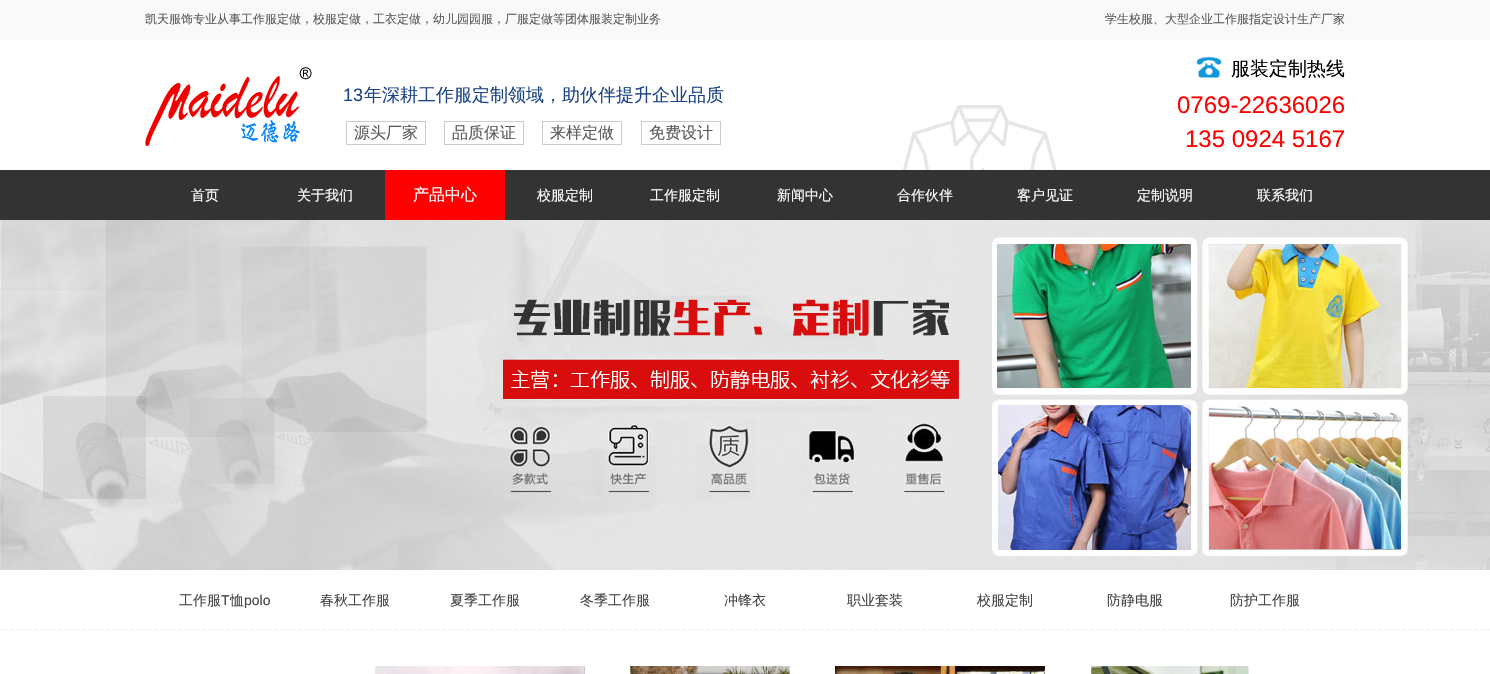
#include "include/core/SkBlurTypes.h"
#include "include/core/SkCanvas.h"
#include "include/core/SkData.h"
#include "include/core/SkFont.h"
#include "include/core/SkFontMgr.h"
#include "include/core/SkImage.h"
#include "include/core/SkMaskFilter.h"
#include "include/core/SkPaint.h"
#include "include/core/SkPathBuilder.h"
#include "include/core/SkTextBlob.h"
#include "include/effects/SkDashPathEffect.h"
#include "include/effects/SkGradientShader.h"
#include "include/utils/SkParsePath.h"

extern sk_sp<SkFontMgr> fontMgr;

void draw(SkCanvas* canvas) {
  SkPaint p;
  p.setAntiAlias(true);
  canvas->clear(SK_ColorWHITE);
  p.setColor(SkColorSetRGB(249, 249, 249));
  canvas->drawRect(SkRect::MakeLTRB(0, 0, 1490, 40), p);
  canvas->drawImageRect(SkImages::DeferredFromEncodedData(SkData::MakeFromFileName("images/1.png")), SkRect::MakeLTRB(145, 67, 312, 146), SkSamplingOptions());
  canvas->drawImageRect(SkImages::DeferredFromEncodedData(SkData::MakeFromFileName("images/2.png")), SkRect::MakeLTRB(1196, 56, 1222, 78), SkSamplingOptions());
  p.setStyle(SkPaint::kStroke_Style);
  p.setStrokeWidth(1);
  p.setColor(SkColorSetRGB(204, 204, 204));
  canvas->drawRect(SkRect::MakeLTRB(346.5f, 121.5f, 425.5f, 144.5f), p);
  canvas->drawRect(SkRect::MakeLTRB(444.5f, 121.5f, 523.5f, 144.5f), p);
  canvas->drawRect(SkRect::MakeLTRB(542.5f, 121.5f, 621.5f, 144.5f), p);
  canvas->drawRect(SkRect::MakeLTRB(641.5f, 121.5f, 720.5f, 144.5f), p);
  canvas->drawImageRect(SkImages::DeferredFromEncodedData(SkData::MakeFromFileName("images/3.png")), SkRect::MakeLTRB(902, 105, 1057, 170), SkSamplingOptions());
  p.setStyle(SkPaint::kFill_Style);
  p.setColor(SkColorSetRGB(51, 51, 51));
  canvas->drawRect(SkRect::MakeLTRB(0, 170, 1490, 220), p);
  p.setColor(SkColorSetRGB(255, 0, 0));
  canvas->drawRect(SkRect::MakeLTRB(385, 170, 505, 220), p);
  canvas->drawImageRect(SkImages::DeferredFromEncodedData(SkData::MakeFromFileName("images/4.png")), SkRect::MakeLTRB(0, 220, 1490, 570), SkSamplingOptions());
  canvas->drawImageRect(SkImages::DeferredFromEncodedData(SkData::MakeFromFileName("images/5.png")), SkRect::MakeLTRB(0, 629, 1490, 630), SkSamplingOptions());
  canvas->drawImageRect(SkImages::DeferredFromEncodedData(SkData::MakeFromFileName("images/6.png")), SkRect::MakeLTRB(375, 666, 585, 674), SkSamplingOptions());
  canvas->drawImageRect(SkImages::DeferredFromEncodedData(SkData::MakeFromFileName("images/7.png")), SkRect::MakeLTRB(630, 666, 790, 674), SkSamplingOptions());
  canvas->drawImageRect(SkImages::DeferredFromEncodedData(SkData::MakeFromFileName("images/8.png")), SkRect::MakeLTRB(835, 666, 1045, 674), SkSamplingOptions());
  canvas->drawImageRect(SkImages::DeferredFromEncodedData(SkData::MakeFromFileName("images/9.png")), SkRect::MakeLTRB(1091, 666, 1249, 674), SkSamplingOptions());
  SkFont font1(fontMgr->matchFamilyStyle("WenQuanYi Zen Hei", SkFontStyle(500, SkFontStyle::kNormal_Width, SkFontStyle::kUpright_Slant)), 12);
  font1.setSubpixel(true);
  p.setColor(SkColorSetRGB(90, 90, 90));
  canvas->drawString("凯天服饰专业从事工作服定做，校服定做，工衣定做，幼儿园园服，厂服定做等团体服装定制业务", 145, 23, font1, p);
  canvas->drawString("学生校服、大型企业工作服指定设计生产厂家", 1105, 23, font1, p);
  SkFont font2(fontMgr->matchFamilyStyle("Liberation Sans", SkFontStyle::Normal()), 18);
  font2.setSubpixel(true);
  p.setColor(SkColorSetRGB(28, 69, 135));
  canvas->drawString("13", 343, 101, font2, p);
  SkFont font3(fontMgr->matchFamilyStyle("WenQuanYi Zen Hei", SkFontStyle(500, SkFontStyle::kNormal_Width, SkFontStyle::kUpright_Slant)), 18);
  font3.setSubpixel(true);
  canvas->drawString("年深耕工作服定制领域，助伙伴提升企业品质", 364, 101, font3, p);
  SkFont font4(fontMgr->matchFamilyStyle("WenQuanYi Zen Hei", SkFontStyle(500, SkFontStyle::kNormal_Width, SkFontStyle::kUpright_Slant)), 19);
  font4.setSubpixel(true);
  p.setColor(SK_ColorBLACK);
  canvas->drawString("服装定制热线", 1231, 75, font4, p);
  SkFont font5(fontMgr->matchFamilyStyle("WenQuanYi Zen Hei", SkFontStyle(500, SkFontStyle::kNormal_Width, SkFontStyle::kUpright_Slant)), 16);
  font5.setSubpixel(true);
  p.setColor(SkColorSetRGB(90, 90, 90));
  canvas->drawString("源头厂家", 354, 138, font5, p);
  canvas->drawString("品质保证", 452, 138, font5, p);
  canvas->drawString("来样定做", 550, 138, font5, p);
  canvas->drawString("免费设计", 649, 138, font5, p);
  SkFont font6(fontMgr->matchFamilyStyle("Liberation Sans", SkFontStyle::Normal()), 24);
  font6.setSubpixel(true);
  p.setColor(SkColorSetRGB(255, 0, 0));
  canvas->drawString("0769-22636026", 1177, 113, font6, p);
  canvas->drawString("135 0924 5167", 1185, 147, font6, p);
  SkFont font7(fontMgr->matchFamilyStyle("WenQuanYi Zen Hei", SkFontStyle(500, SkFontStyle::kNormal_Width, SkFontStyle::kUpright_Slant)), 14);
  font7.setSubpixel(true);
  p.setColor(SK_ColorWHITE);
  canvas->drawString("首页", 191, 200, font7, p);
  canvas->drawString("关于我们", 297, 200, font7, p);
  canvas->drawString("产品中心", 413, 200, font5, p);
  canvas->drawString("校服定制", 537, 200, font7, p);
  canvas->drawString("工作服定制", 650, 200, font7, p);
  canvas->drawString("新闻中心", 777, 200, font7, p);
  canvas->drawString("合作伙伴", 897, 200, font7, p);
  canvas->drawString("客户见证", 1017, 200, font7, p);
  canvas->drawString("定制说明", 1137, 200, font7, p);
  canvas->drawString("联系我们", 1257, 200, font7, p);
  p.setColor(SkColorSetRGB(67, 67, 67));
  canvas->drawString("工作服", 179, 605, font7, p);
  SkFont font8(fontMgr->matchFamilyStyle("Liberation Sans", SkFontStyle::Normal()), 14);
  font8.setSubpixel(true);
  canvas->drawString("T", 221, 605, font8, p);
  canvas->drawString("恤", 230, 605, font7, p);
  canvas->drawString("polo", 244, 605, font8, p);
  canvas->drawString("春秋工作服", 320, 605, font7, p);
  canvas->drawString("夏季工作服", 450, 605, font7, p);
  canvas->drawString("冬季工作服", 580, 605, font7, p);
  canvas->drawString("冲锋衣", 724, 605, font7, p);
  canvas->drawString("职业套装", 847, 605, font7, p);
  canvas->drawString("校服定制", 977, 605, font7, p);
  canvas->drawString("防静电服", 1107, 605, font7, p);
  canvas->drawString("防护工作服", 1230, 605, font7, p);
}
